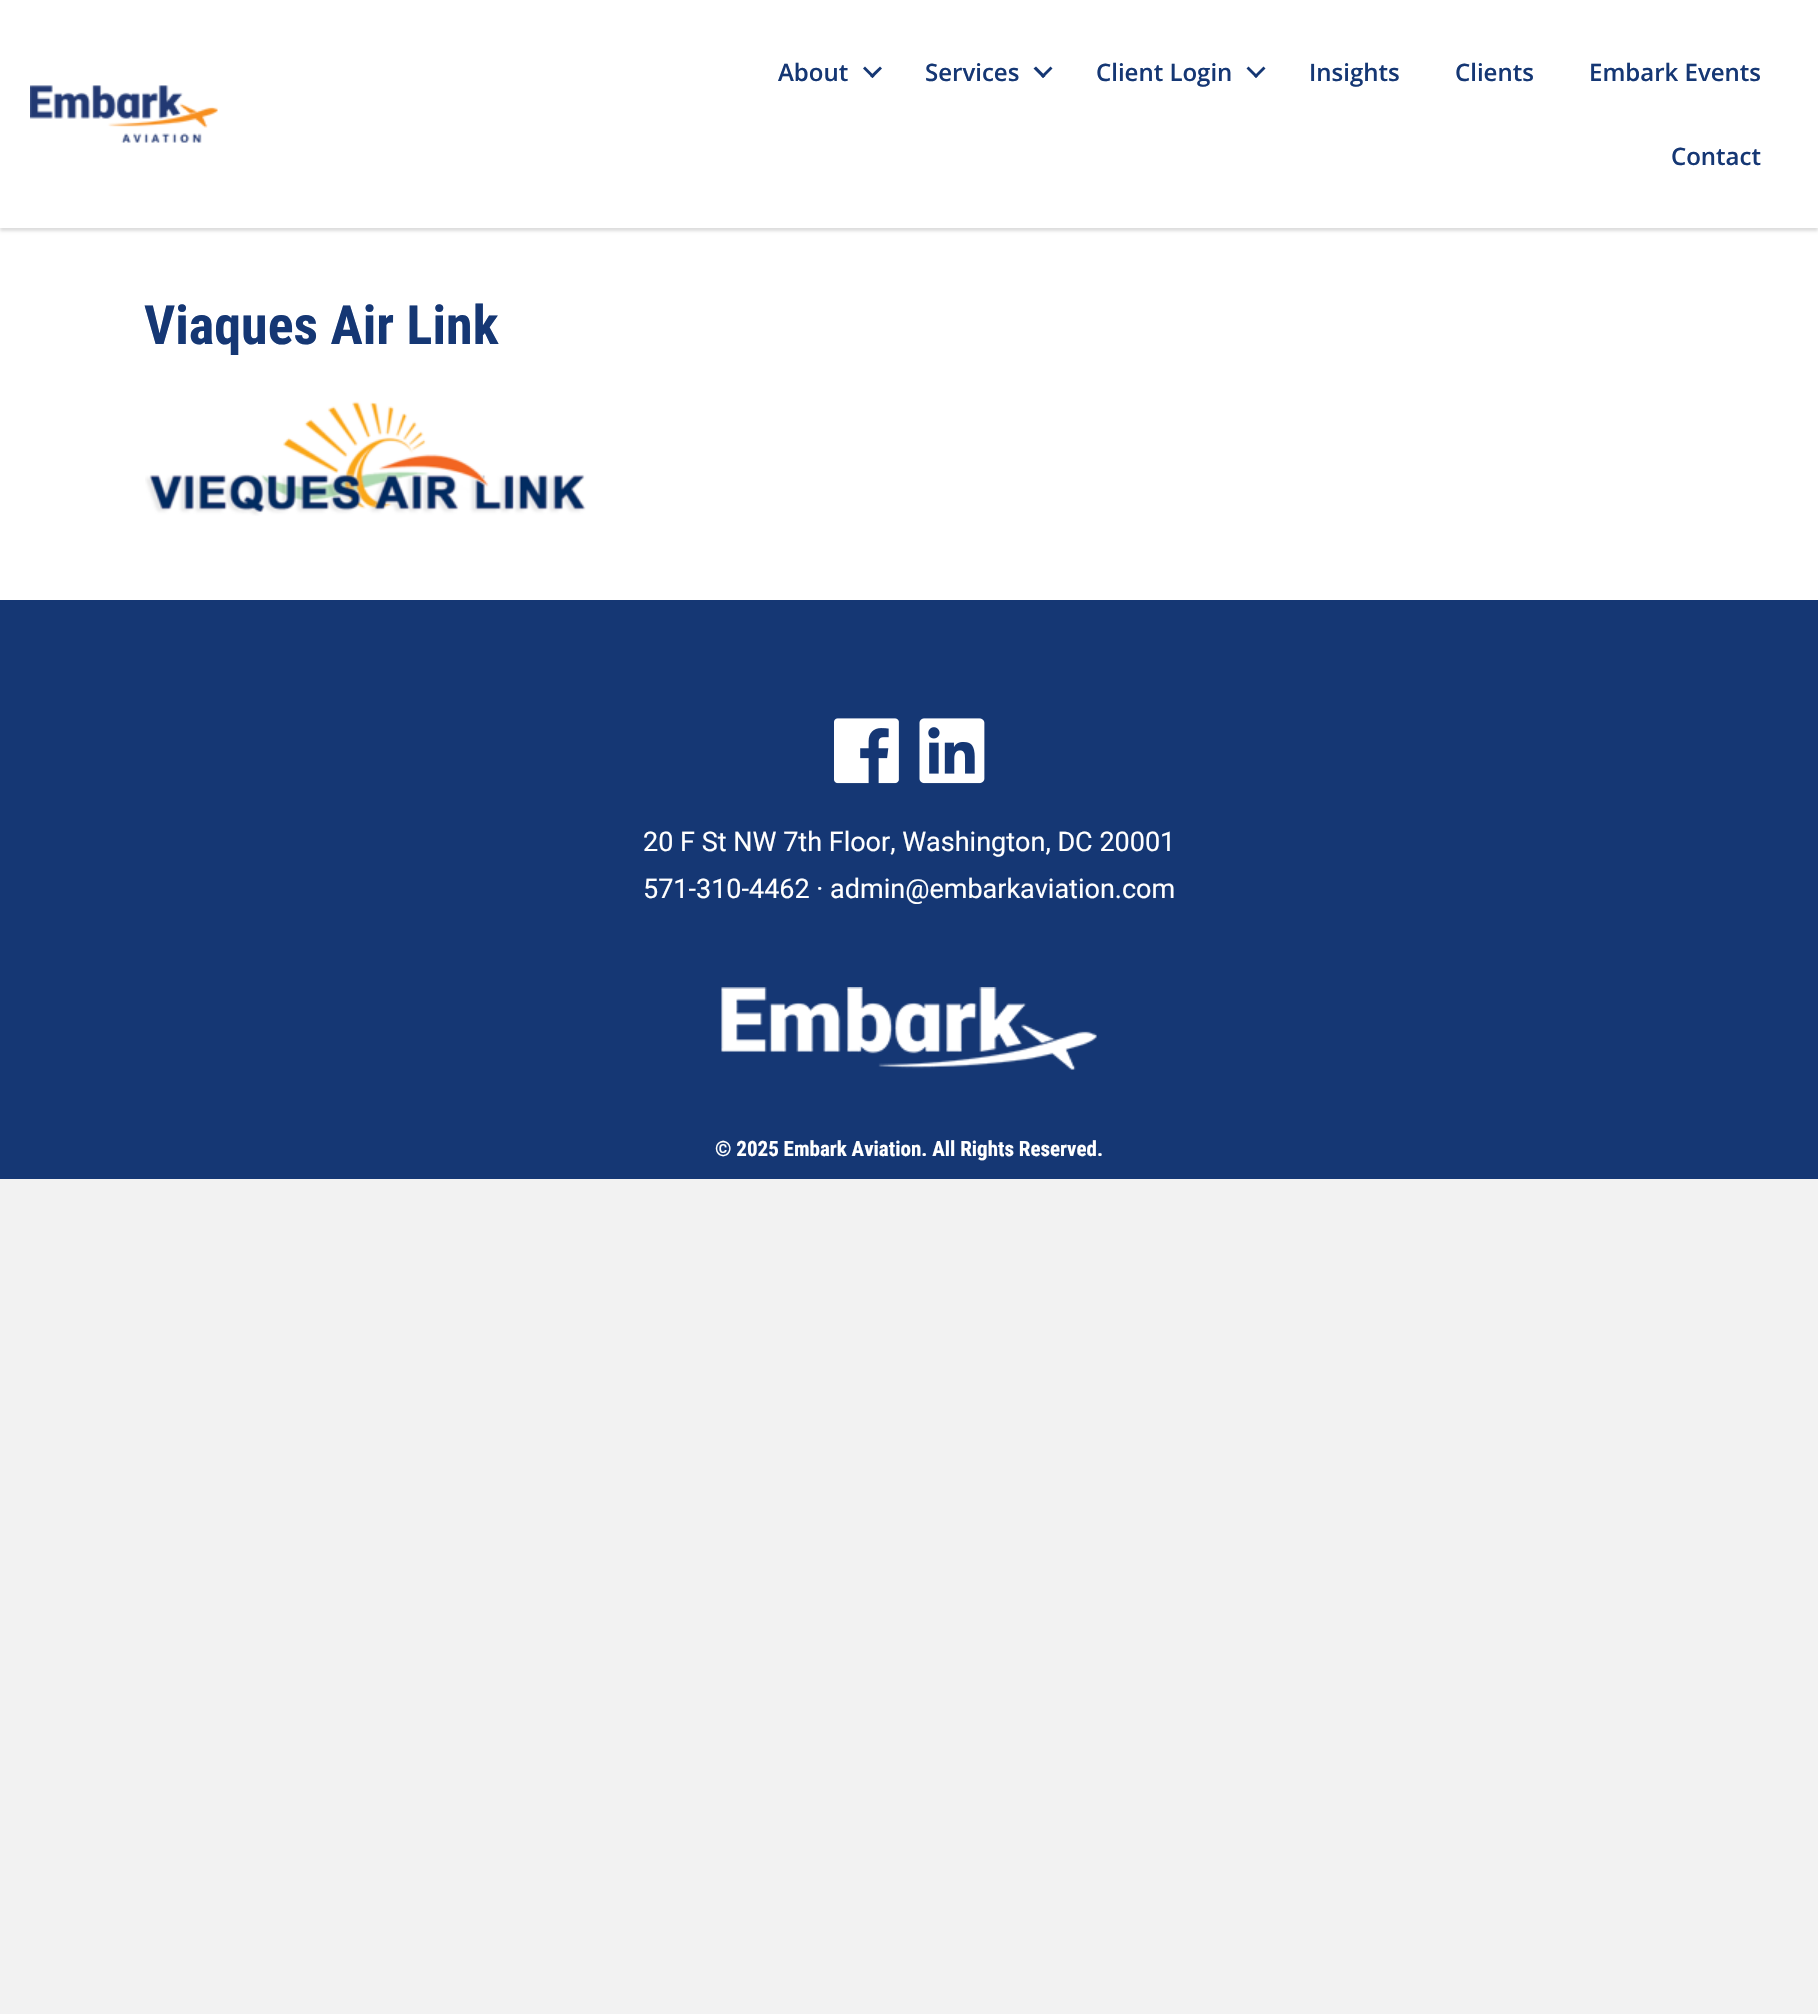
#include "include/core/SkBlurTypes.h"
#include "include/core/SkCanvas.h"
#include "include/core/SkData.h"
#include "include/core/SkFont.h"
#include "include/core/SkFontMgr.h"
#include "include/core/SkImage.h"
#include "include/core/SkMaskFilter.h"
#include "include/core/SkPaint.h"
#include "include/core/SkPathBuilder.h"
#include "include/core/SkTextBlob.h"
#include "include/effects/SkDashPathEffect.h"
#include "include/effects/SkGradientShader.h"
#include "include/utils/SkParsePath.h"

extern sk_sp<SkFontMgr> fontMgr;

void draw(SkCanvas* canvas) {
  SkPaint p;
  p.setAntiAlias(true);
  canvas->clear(SkColorSetRGB(242, 242, 242));
  p.setColor(SK_ColorWHITE);
  canvas->drawRect(SkRect::MakeLTRB(0, 228, 1818, 600), p);
  p.setColor(SkColorSetRGB(221, 221, 221));
  p.setMaskFilter(SkMaskFilter::MakeBlur(kNormal_SkBlurStyle, 1.5f));
  canvas->drawRect(SkRect::MakeLTRB(0, 3, 1818, 231), p);
  p.setMaskFilter(nullptr);
  p.setColor(SK_ColorWHITE);
  canvas->drawRect(SkRect::MakeLTRB(0, 0, 1818, 228), p);
  canvas->drawImageRect(SkImages::DeferredFromEncodedData(SkData::MakeFromFileName("images/1.png")), SkRect::MakeLTRB(30, 85, 218, 143), SkSamplingOptions());
  p.setColor(SkColorSetRGB(21, 55, 116));
  canvas->drawPath(SkPathBuilder().moveTo(880, 66.5f).lineTo(882, 68.5f).lineTo(872.5f, 78).lineTo(870, 76).close().detach(), p);
  canvas->drawPath(SkPathBuilder().moveTo(865, 66.5f).lineTo(874.5f, 76).lineTo(872.5f, 78).lineTo(863, 68.5f).close().detach(), p);
  canvas->drawPath(SkPathBuilder().moveTo(1050.5f, 66.5f).lineTo(1052.5f, 68.5f).lineTo(1043, 78).lineTo(1041, 76).close().detach(), p);
  canvas->drawPath(SkPathBuilder().moveTo(1036, 66.5f).lineTo(1045.5f, 76).lineTo(1043, 78).lineTo(1033.5f, 68.5f).close().detach(), p);
  canvas->drawPath(SkPathBuilder().moveTo(1263.5f, 66.5f).lineTo(1265.5f, 68.5f).lineTo(1256, 78).lineTo(1254, 76).close().detach(), p);
  canvas->drawPath(SkPathBuilder().moveTo(1248.5f, 66.5f).lineTo(1258, 76).lineTo(1256, 78).lineTo(1246.5f, 68.5f).close().detach(), p);
  canvas->drawImageRect(SkImages::DeferredFromEncodedData(SkData::MakeFromFileName("images/2.png")), SkRect::MakeLTRB(145, 401, 586, 516), SkSamplingOptions());
  canvas->drawRect(SkRect::MakeLTRB(0, 600, 1818, 1179), p);
  canvas->drawImageRect(SkImages::DeferredFromEncodedData(SkData::MakeFromFileName("images/3.png")), SkRect::MakeLTRB(834, 718, 899, 784), SkSamplingOptions());
  canvas->drawImageRect(SkImages::DeferredFromEncodedData(SkData::MakeFromFileName("images/4.png")), SkRect::MakeLTRB(919, 718, 985, 784), SkSamplingOptions());
  canvas->drawImageRect(SkImages::DeferredFromEncodedData(SkData::MakeFromFileName("images/5.png")), SkRect::MakeLTRB(721, 987, 1097, 1070), SkSamplingOptions());
  SkFont font1(fontMgr->matchFamilyStyle("Open Sans", SkFontStyle(600, SkFontStyle::kNormal_Width, SkFontStyle::kUpright_Slant)), 24);
  font1.setSubpixel(true);
  canvas->drawString("About", 778, 81, font1, p);
  canvas->drawString("Services", 925, 81, font1, p);
  canvas->drawString("Client Login", 1096, 81, font1, p);
  canvas->drawString("Insights", 1309, 81, font1, p);
  canvas->drawString("Clients", 1455, 81, font1, p);
  canvas->drawString("Embark Events", 1589, 81, font1, p);
  canvas->drawString("Contact", 1671, 165, font1, p);
  SkFont font2(fontMgr->matchFamilyStyle("Roboto Condensed", SkFontStyle::Bold()), 54);
  font2.setSubpixel(true);
  canvas->drawString("Viaques Air Link", 144, 344, font2, p);
  SkFont font3(fontMgr->matchFamilyStyle("Roboto", SkFontStyle::Normal()), 27);
  font3.setSubpixel(true);
  p.setColor(SK_ColorWHITE);
  canvas->drawString("20 F St NW 7th Floor, Washington, DC 20001", 643, 851, font3, p);
  canvas->drawString("571-310-4462 · admin@embarkaviation.com", 643, 898, font3, p);
  SkFont font4(fontMgr->matchFamilyStyle("Roboto Condensed", SkFontStyle::Bold()), 21);
  font4.setSubpixel(true);
  canvas->drawString("© 2025 Embark Aviation. All Rights Reserved.", 715, 1156, font4, p);
}
